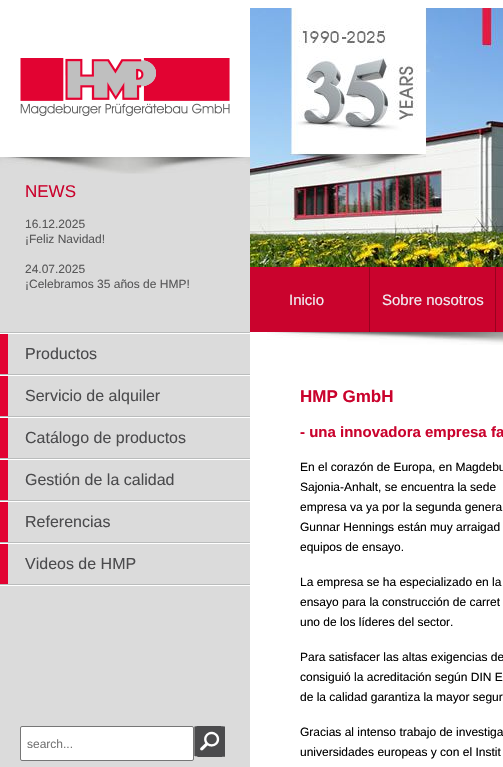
#include "include/core/SkBlurTypes.h"
#include "include/core/SkCanvas.h"
#include "include/core/SkData.h"
#include "include/core/SkFont.h"
#include "include/core/SkFontMgr.h"
#include "include/core/SkImage.h"
#include "include/core/SkMaskFilter.h"
#include "include/core/SkPaint.h"
#include "include/core/SkPathBuilder.h"
#include "include/core/SkTextBlob.h"
#include "include/effects/SkDashPathEffect.h"
#include "include/effects/SkGradientShader.h"
#include "include/utils/SkParsePath.h"

extern sk_sp<SkFontMgr> fontMgr;

void draw(SkCanvas* canvas) {
  SkPaint p;
  p.setAntiAlias(true);
  canvas->clear(SK_ColorWHITE);
  p.setColor(SkColorSetRGB(202, 3, 45));
  canvas->drawRect(SkRect::MakeLTRB(250, 267, 503, 332), p);
  canvas->drawImageRect(SkImages::DeferredFromEncodedData(SkData::MakeFromFileName("images/1.png")), SkRect::MakeLTRB(20, 58, 230, 116), SkSamplingOptions());
  canvas->drawImageRect(SkImages::DeferredFromEncodedData(SkData::MakeFromFileName("images/2.png")), SkRect::MakeLTRB(250, 8, 503, 267), SkSamplingOptions());
  p.setColor(SkColorSetRGB(219, 219, 219));
  canvas->drawRect(SkRect::MakeLTRB(0, 174, 250, 332), p);
  canvas->drawImageRect(SkImages::DeferredFromEncodedData(SkData::MakeFromFileName("images/3.png")), SkRect::MakeLTRB(0, 157, 250, 174), SkSamplingOptions());
  p.setColor(SkColorSetRGB(152, 2, 31));
  canvas->drawRect(SkRect::MakeLTRB(369, 267, 370, 332), p);
  canvas->drawRect(SkRect::MakeLTRB(495, 267, 496, 332), p);
  p.setColor(SkColorSetRGB(219, 219, 219));
  canvas->drawRect(SkRect::MakeLTRB(0, 334, 250, 767), p);
  p.setColor(SkColorSetRGB(186, 188, 188));
  canvas->drawRect(SkRect::MakeLTRB(0, 332, 250, 333), p);
  p.setColor(SkColorSetRGB(226, 3, 50));
  canvas->drawRect(SkRect::MakeLTRB(0, 334, 8, 374), p);
  p.setColor(SkColorSetRGB(186, 188, 188));
  canvas->drawRect(SkRect::MakeLTRB(0, 374, 250, 375), p);
  p.setColor(SkColorSetRGB(226, 3, 50));
  canvas->drawRect(SkRect::MakeLTRB(0, 376, 8, 416), p);
  p.setColor(SK_ColorWHITE);
  canvas->drawRect(SkRect::MakeLTRB(0, 375, 250, 376), p);
  p.setColor(SkColorSetRGB(186, 188, 188));
  canvas->drawRect(SkRect::MakeLTRB(0, 416, 250, 417), p);
  p.setColor(SkColorSetRGB(226, 3, 50));
  canvas->drawRect(SkRect::MakeLTRB(0, 418, 8, 458), p);
  p.setColor(SK_ColorWHITE);
  canvas->drawRect(SkRect::MakeLTRB(0, 417, 250, 418), p);
  p.setColor(SkColorSetRGB(186, 188, 188));
  canvas->drawRect(SkRect::MakeLTRB(0, 458, 250, 459), p);
  p.setColor(SkColorSetRGB(226, 3, 50));
  canvas->drawRect(SkRect::MakeLTRB(0, 460, 8, 500), p);
  p.setColor(SK_ColorWHITE);
  canvas->drawRect(SkRect::MakeLTRB(0, 459, 250, 460), p);
  p.setColor(SkColorSetRGB(186, 188, 188));
  canvas->drawRect(SkRect::MakeLTRB(0, 500, 250, 501), p);
  p.setColor(SkColorSetRGB(226, 3, 50));
  canvas->drawRect(SkRect::MakeLTRB(0, 502, 8, 542), p);
  p.setColor(SK_ColorWHITE);
  canvas->drawRect(SkRect::MakeLTRB(0, 501, 250, 502), p);
  p.setColor(SkColorSetRGB(186, 188, 188));
  canvas->drawRect(SkRect::MakeLTRB(0, 542, 250, 543), p);
  p.setColor(SkColorSetRGB(226, 3, 50));
  canvas->drawRect(SkRect::MakeLTRB(0, 544, 8, 584), p);
  p.setColor(SK_ColorWHITE);
  canvas->drawRect(SkRect::MakeLTRB(0, 543, 250, 544), p);
  p.setColor(SkColorSetRGB(186, 188, 188));
  canvas->drawRect(SkRect::MakeLTRB(0, 584, 250, 585), p);
  p.setColor(SK_ColorWHITE);
  canvas->drawRect(SkRect::MakeLTRB(0, 585, 250, 586), p);
  canvas->drawRoundRect(SkRect::MakeLTRB(20.5f, 726.5f, 193.5f, 760.5f), 1.5f, 1.5f, p);
  p.setStyle(SkPaint::kStroke_Style);
  p.setStrokeWidth(1);
  p.setColor(SkColorSetRGB(118, 118, 118));
  canvas->drawRoundRect(SkRect::MakeLTRB(20.5f, 726.5f, 193.5f, 760.5f), 1.5f, 1.5f, p);
  canvas->drawImageRect(SkImages::DeferredFromEncodedData(SkData::MakeFromFileName("images/4.png")), SkRect::MakeLTRB(194, 726, 225, 757), SkSamplingOptions());
  canvas->drawImageRect(SkImages::DeferredFromEncodedData(SkData::MakeFromFileName("images/5.png")), SkRect::MakeLTRB(267, 332, 503, 345), SkSamplingOptions());
  SkFont font1(fontMgr->matchFamilyStyle("Liberation Sans", SkFontStyle::Normal()), 17);
  font1.setSubpixel(true);
  p.setStyle(SkPaint::kFill_Style);
  p.setColor(SkColorSetRGB(202, 3, 45));
  canvas->drawString("NEWS", 25, 197, font1, p);
  SkFont font2(fontMgr->matchFamilyStyle("Liberation Sans", SkFontStyle::Normal()), 12);
  font2.setSubpixel(true);
  p.setColor(SkColorSetRGB(88, 88, 89));
  canvas->drawString("16.12.2025", 25, 228, font2, p);
  canvas->drawString("¡Feliz Navidad!", 25, 243, font2, p);
  canvas->drawString("24.07.2025", 25, 273, font2, p);
  canvas->drawString("¡Celebramos 35 años de HMP!", 25, 288, font2, p);
  SkFont font3(fontMgr->matchFamilyStyle("Liberation Sans", SkFontStyle::Normal()), 15);
  font3.setSubpixel(true);
  p.setColor(SkColorSetRGB(240, 237, 241));
  canvas->drawString("Inicio", 289, 305, font3, p);
  canvas->drawString("Sobre nosotros", 382, 305, font3, p);
  SkFont font4(fontMgr->matchFamilyStyle("Liberation Sans", SkFontStyle::Normal()), 16);
  font4.setSubpixel(true);
  p.setColor(SkColorSetRGB(75, 75, 77));
  canvas->drawString("Productos", 25, 359, font4, p);
  canvas->drawString("Servicio de alquiler", 25, 401, font4, p);
  canvas->drawString("Catálogo de productos", 25, 443, font4, p);
  canvas->drawString("Gestión de la calidad", 25, 485, font4, p);
  canvas->drawString("Referencias", 25, 527, font4, p);
  canvas->drawString("Videos de HMP", 25, 569, font4, p);
  p.setColor(SkColorSetRGB(117, 117, 117));
  canvas->drawString("search...", 27, 748, font2, p);
  SkFont font5(fontMgr->matchFamilyStyle("Liberation Sans", SkFontStyle::Bold()), 17);
  font5.setSubpixel(true);
  p.setColor(SkColorSetRGB(202, 3, 45));
  canvas->drawString("HMP GmbH", 300, 402, font5, p);
  SkFont font6(fontMgr->matchFamilyStyle("Liberation Sans", SkFontStyle::Bold()), 15);
  font6.setSubpixel(true);
  canvas->drawString("- una innovadora empresa fa", 300, 437, font6, p);
  p.setColor(SK_ColorBLACK);
  canvas->drawString("En el corazón de Europa, en Magdebu", 300, 471, font2, p);
  canvas->drawString("Sajonia-Anhalt, se encuentra la sede", 300, 491, font2, p);
  canvas->drawString("empresa va ya por la segunda genera", 300, 511, font2, p);
  canvas->drawString("Gunnar Hennings están muy arraigad", 300, 531, font2, p);
  canvas->drawString("equipos de ensayo.", 300, 551, font2, p);
  canvas->drawString("La empresa se ha especializado en la", 300, 586, font2, p);
  canvas->drawString("ensayo para la construcción de carret", 300, 606, font2, p);
  canvas->drawString("uno de los líderes del sector.", 300, 626, font2, p);
  canvas->drawString("Para satisfacer las altas exigencias de", 300, 661, font2, p);
  canvas->drawString("consiguió la acreditación según DIN E", 300, 681, font2, p);
  canvas->drawString("de la calidad garantiza la mayor segur", 300, 701, font2, p);
  canvas->drawString("Gracias al intenso trabajo de investiga", 300, 736, font2, p);
  canvas->drawString("universidades europeas y con el Instit", 300, 756, font2, p);
}
